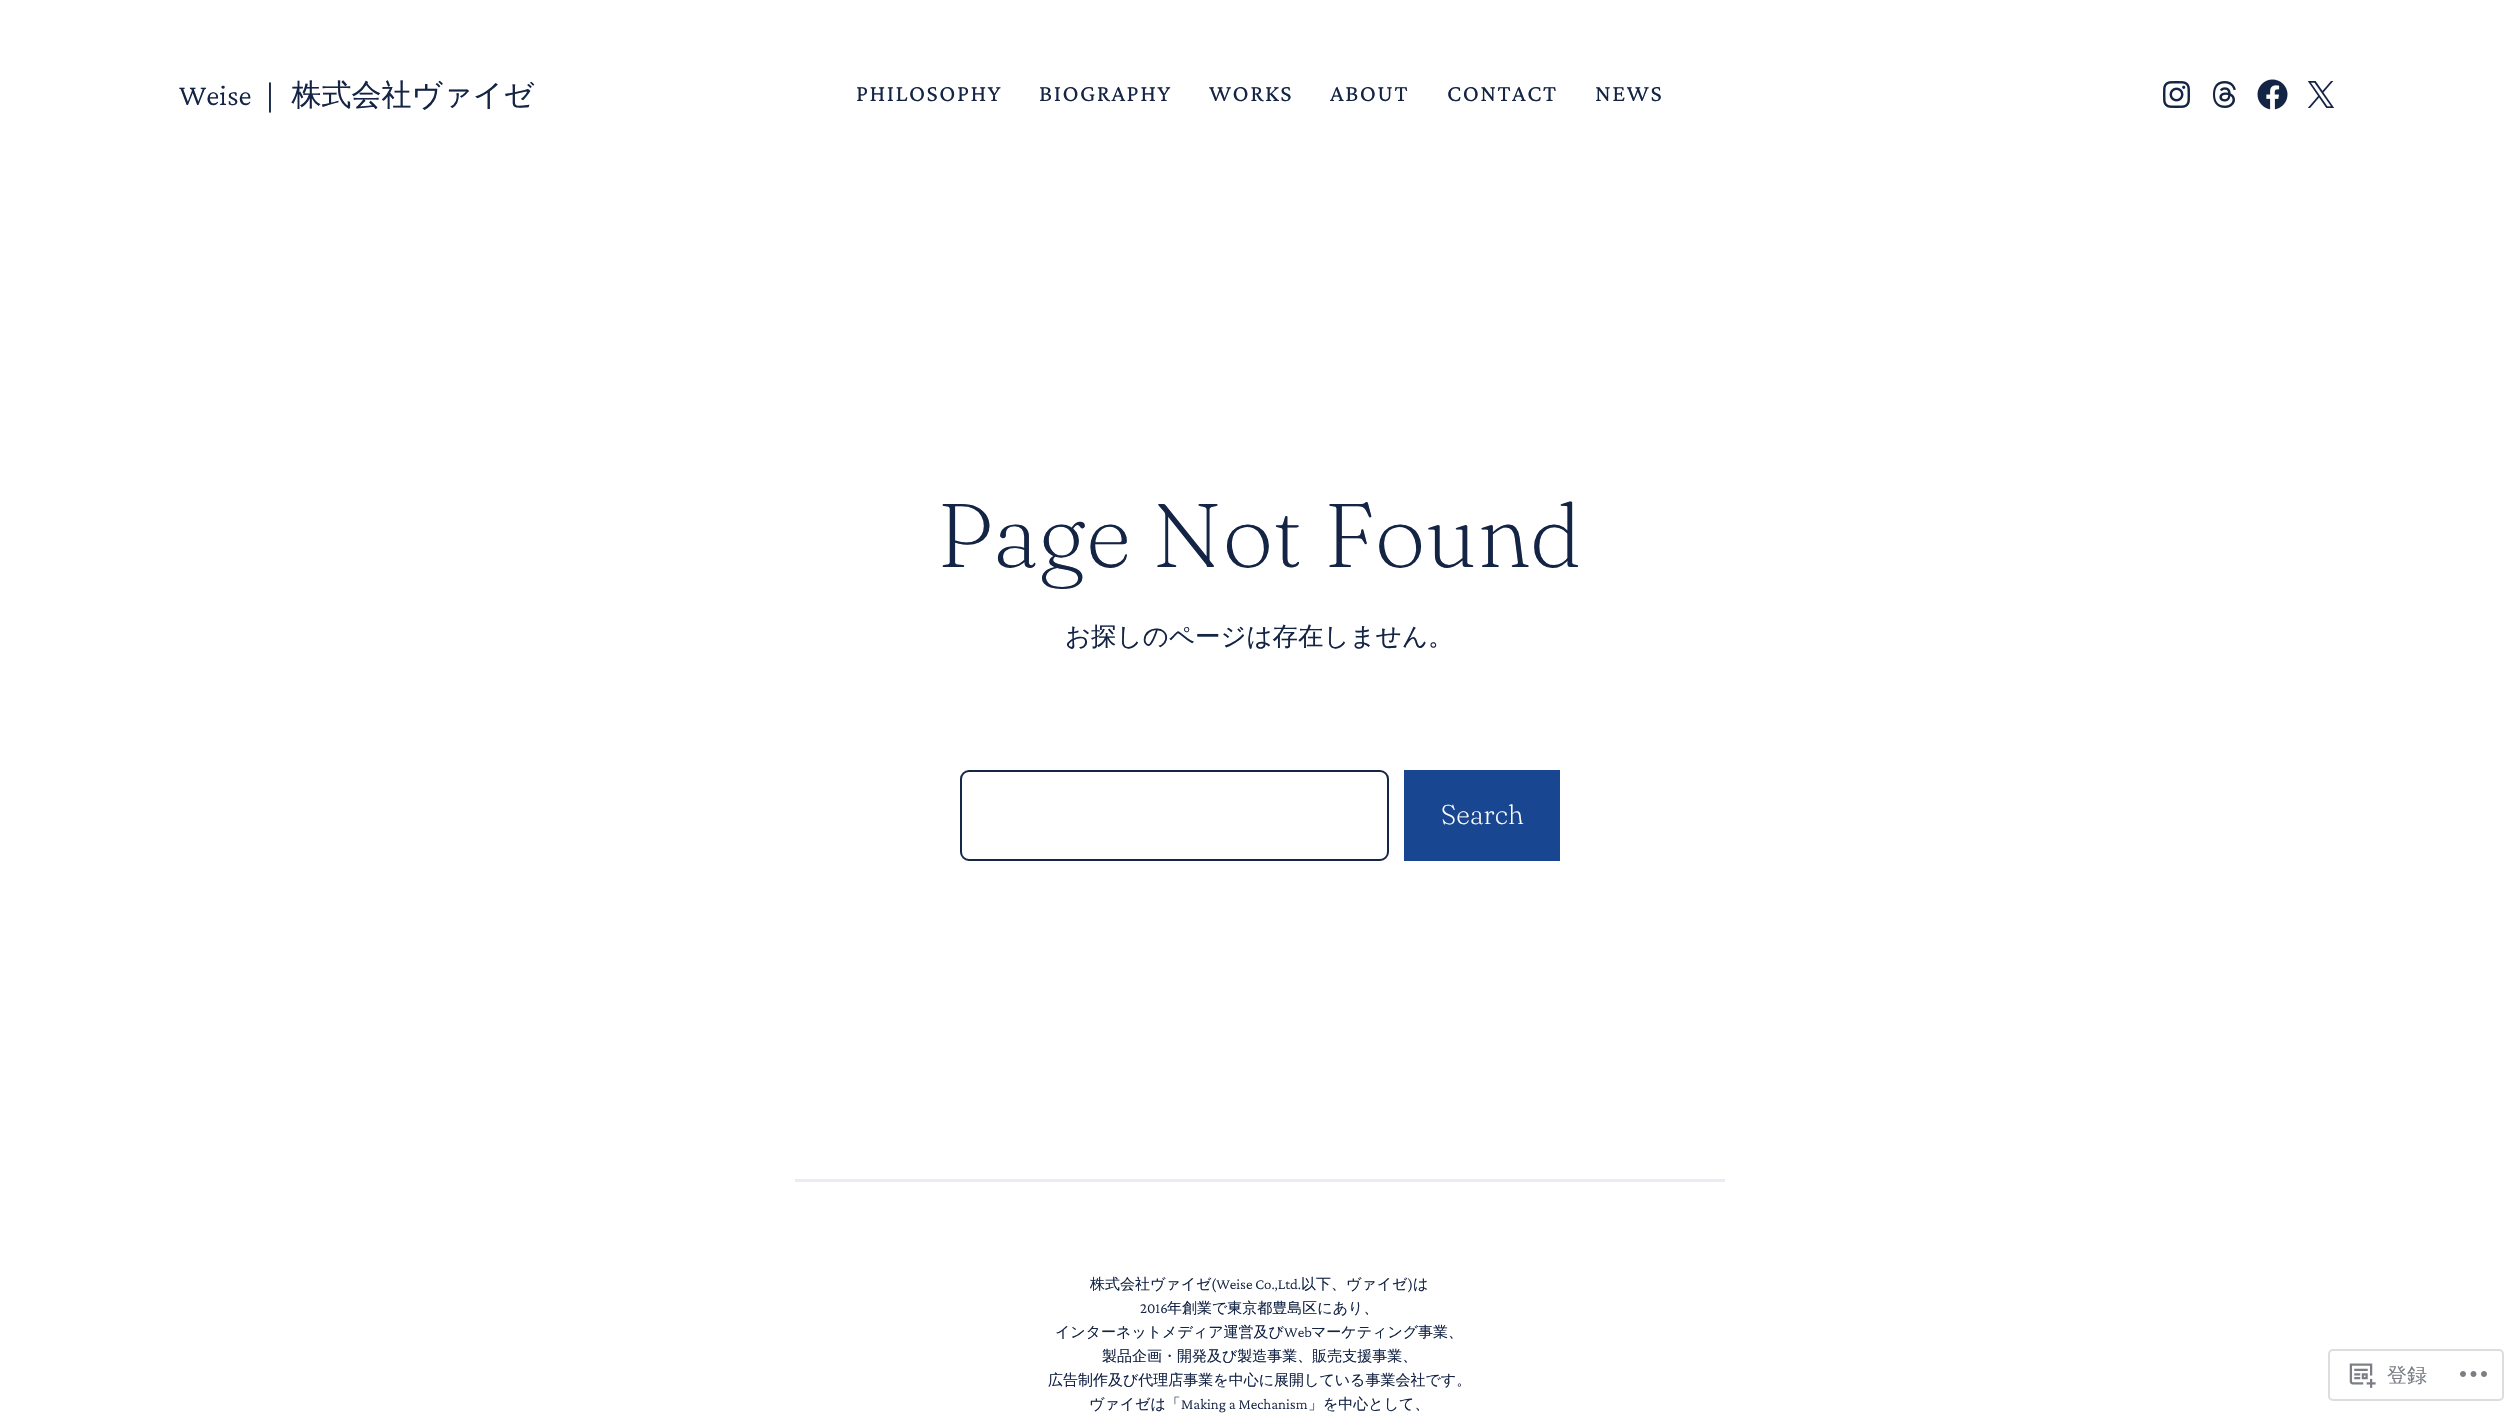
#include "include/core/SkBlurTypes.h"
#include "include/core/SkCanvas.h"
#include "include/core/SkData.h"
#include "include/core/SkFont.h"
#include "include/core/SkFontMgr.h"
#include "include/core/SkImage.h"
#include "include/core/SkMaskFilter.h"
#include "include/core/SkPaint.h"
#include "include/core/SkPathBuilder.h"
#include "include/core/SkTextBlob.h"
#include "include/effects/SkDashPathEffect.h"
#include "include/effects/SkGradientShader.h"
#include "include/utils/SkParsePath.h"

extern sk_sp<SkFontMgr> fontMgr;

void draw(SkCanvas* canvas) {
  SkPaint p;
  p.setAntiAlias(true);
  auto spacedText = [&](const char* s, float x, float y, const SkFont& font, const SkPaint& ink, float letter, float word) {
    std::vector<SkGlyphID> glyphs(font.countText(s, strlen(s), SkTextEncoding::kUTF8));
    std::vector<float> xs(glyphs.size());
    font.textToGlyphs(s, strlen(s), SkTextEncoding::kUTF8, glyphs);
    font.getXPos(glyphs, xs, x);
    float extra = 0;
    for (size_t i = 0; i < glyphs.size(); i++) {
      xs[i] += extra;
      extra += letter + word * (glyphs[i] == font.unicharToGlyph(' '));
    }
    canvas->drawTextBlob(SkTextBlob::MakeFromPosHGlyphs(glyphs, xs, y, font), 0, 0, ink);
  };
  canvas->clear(SK_ColorWHITE);
  canvas->drawImageRect(SkImages::DeferredFromEncodedData(SkData::MakeFromFileName("images/1.png")), SkRect::MakeLTRB(2163, 81, 2190, 108), SkSamplingOptions());
  canvas->drawImageRect(SkImages::DeferredFromEncodedData(SkData::MakeFromFileName("images/2.png")), SkRect::MakeLTRB(2212, 81, 2236, 108), SkSamplingOptions());
  canvas->drawImageRect(SkImages::DeferredFromEncodedData(SkData::MakeFromFileName("images/3.png")), SkRect::MakeLTRB(2257, 79, 2288, 110), SkSamplingOptions());
  canvas->drawImageRect(SkImages::DeferredFromEncodedData(SkData::MakeFromFileName("images/4.png")), SkRect::MakeLTRB(2307, 81, 2335, 108), SkSamplingOptions());
  p.setStyle(SkPaint::kStroke_Style);
  p.setStrokeWidth(2);
  p.setColor(SkColorSetRGB(21, 38, 72));
  canvas->drawRoundRect(SkRect::MakeLTRB(961, 771, 1388, 860), 8, 8, p);
  p.setStyle(SkPaint::kFill_Style);
  p.setColor(SkColorSetRGB(24, 70, 144));
  canvas->drawRect(SkRect::MakeLTRB(1404, 770, 1560, 861), p);
  p.setColor(SkColorSetRGB(235, 236, 242));
  canvas->drawRect(SkRect::MakeLTRB(795, 1179, 1725, 1182), p);
  p.setStyle(SkPaint::kStroke_Style);
  p.setColor(SkColorSetRGB(221, 221, 223));
  canvas->drawRoundRect(SkRect::MakeLTRB(2329, 1350, 2503, 1400), 4, 4, p);
  canvas->drawImageRect(SkImages::DeferredFromEncodedData(SkData::MakeFromFileName("images/5.png")), SkRect::MakeLTRB(2349, 1363, 2376, 1388), SkSamplingOptions());
  canvas->drawImageRect(SkImages::DeferredFromEncodedData(SkData::MakeFromFileName("images/6.png")), SkRect::MakeLTRB(2460, 1371, 2487, 1377), SkSamplingOptions());
  SkFont font1(fontMgr->matchFamilyStyle("Crimson Pro", SkFontStyle(300, SkFontStyle::kNormal_Width, SkFontStyle::kUpright_Slant)), 30);
  font1.setSubpixel(true);
  p.setStyle(SkPaint::kFill_Style);
  p.setColor(SkColorSetRGB(20, 36, 69));
  canvas->drawString("Weise", 179, 105, font1, p);
  SkFont font2(fontMgr->matchFamilyStyle("WenQuanYi Zen Hei", SkFontStyle(500, SkFontStyle::kNormal_Width, SkFontStyle::kUpright_Slant)), 30);
  font2.setSubpixel(true);
  spacedText("｜ 株式会社ヴァイゼ", 255, 105, font2, p, 0, -2);
  SkFont font3(fontMgr->matchFamilyStyle("Crimson Pro", SkFontStyle::Normal()), 24);
  font3.setSubpixel(true);
  spacedText("PHILOSOPHY", 856, 101, font3, p, 1.5f, 0);
  spacedText("BIOGRAPHY", 1039, 101, font3, p, 1.5f, 0);
  spacedText("WORKS", 1209, 101, font3, p, 1.5f, 0);
  spacedText("ABOUT", 1330, 101, font3, p, 1.5f, 0);
  spacedText("CONTACT", 1447, 101, font3, p, 1.5f, 0);
  spacedText("NEWS", 1595, 101, font3, p, 1.5f, 0);
  SkFont font4(fontMgr->matchFamilyStyle("Fraunces", SkFontStyle(200, SkFontStyle::kNormal_Width, SkFontStyle::kUpright_Slant)), 90);
  font4.setSubpixel(true);
  canvas->drawString("Page Not Found", 937, 567, font4, p);
  SkFont font5(fontMgr->matchFamilyStyle("WenQuanYi Zen Hei", SkFontStyle(500, SkFontStyle::kNormal_Width, SkFontStyle::kUpright_Slant)), 25.5f);
  font5.setSubpixel(true);
  canvas->drawString("お探しのページは存在しません。", 1065, 645, font5, p);
  SkFont font6(fontMgr->matchFamilyStyle("Fraunces", SkFontStyle(200, SkFontStyle::kNormal_Width, SkFontStyle::kUpright_Slant)), 27);
  font6.setSubpixel(true);
  p.setColor(SK_ColorWHITE);
  canvas->drawString("Search", 1441, 824, font6, p);
  SkFont font7(fontMgr->matchFamilyStyle("WenQuanYi Zen Hei", SkFontStyle(500, SkFontStyle::kNormal_Width, SkFontStyle::kUpright_Slant)), 15);
  font7.setSubpixel(true);
  p.setColor(SkColorSetRGB(20, 36, 69));
  canvas->drawString("株式会社ヴァイゼ", 1090, 1289, font7, p);
  SkFont font8(fontMgr->matchFamilyStyle("Crimson Pro", SkFontStyle(300, SkFontStyle::kNormal_Width, SkFontStyle::kUpright_Slant)), 15);
  font8.setSubpixel(true);
  canvas->drawString("(Weise Co.,Ltd.", 1211, 1289, font8, p);
  canvas->drawString("以下、ヴァイゼ", 1301, 1289, font7, p);
  canvas->drawString(")", 1408, 1289, font8, p);
  canvas->drawString("は", 1413, 1289, font7, p);
  canvas->drawString("2016", 1140, 1313, font8, p);
  canvas->drawString("年創業で東京都豊島区にあり、", 1167, 1313, font7, p);
  canvas->drawString("インターネットメディア運営及び", 1055, 1337, font7, p);
  canvas->drawString("Web", 1284, 1337, font8, p);
  canvas->drawString("マーケティング事業、", 1311, 1337, font7, p);
  canvas->drawString("製品企画・開発及び製造事業、販売支援事業、", 1102, 1361, font7, p);
  canvas->drawString("広告制作及び代理店事業を中心に展開している事業会社です。", 1048, 1385, font7, p);
  canvas->drawString("ヴァイゼは「", 1089, 1409, font7, p);
  canvas->drawString("Making a Mechanism", 1181, 1409, font8, p);
  canvas->drawString("」を中心として、", 1308, 1409, font7, p);
  SkFont font9(fontMgr->matchFamilyStyle("WenQuanYi Zen Hei", SkFontStyle(500, SkFontStyle::kNormal_Width, SkFontStyle::kUpright_Slant)), 20);
  font9.setSubpixel(true);
  p.setColor(SkColorSetRGB(123, 127, 133));
  canvas->drawString("登録", 2387, 1382, font9, p);
}
